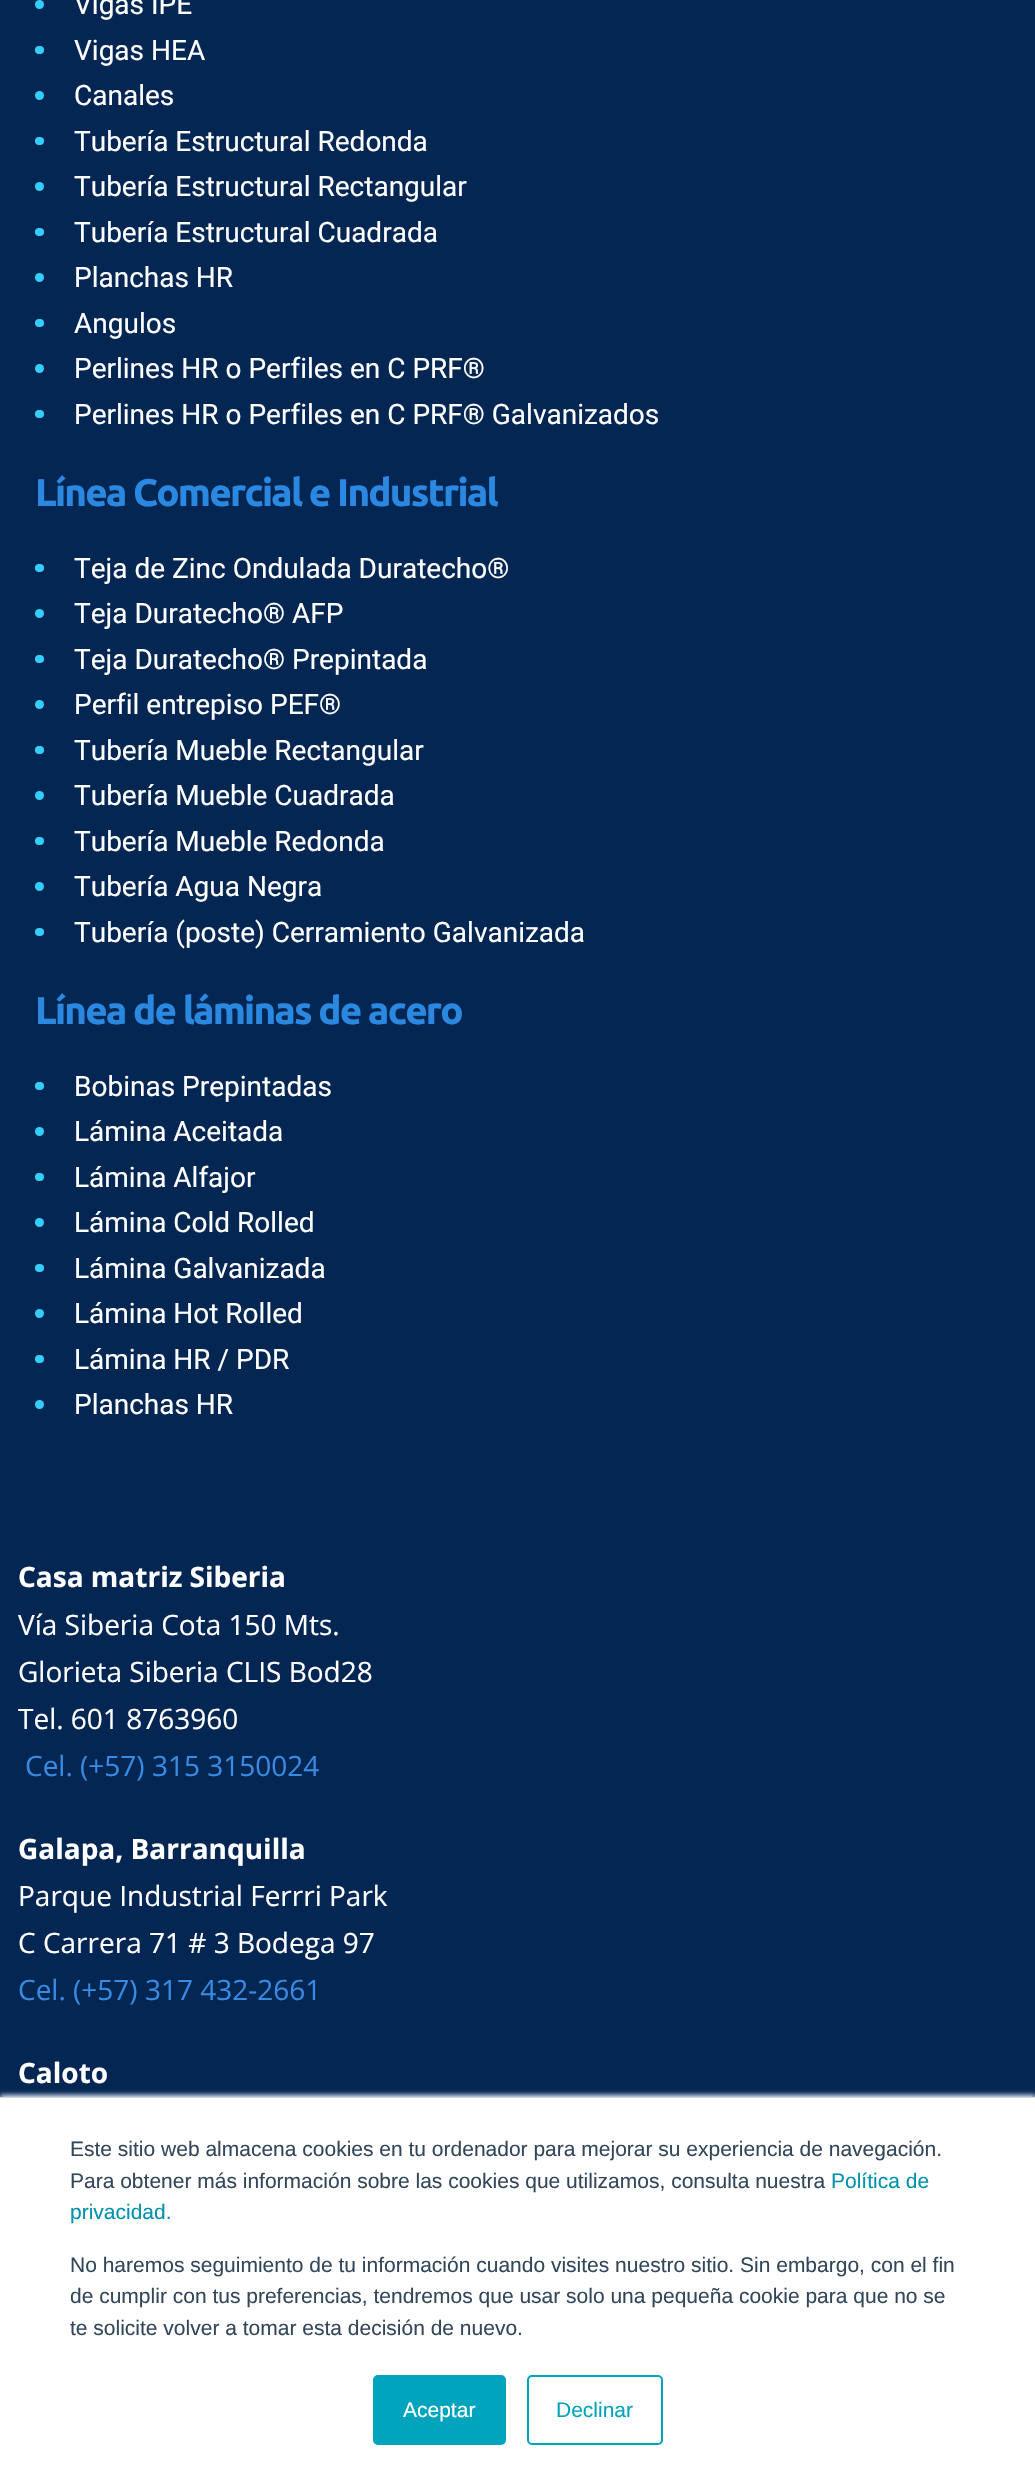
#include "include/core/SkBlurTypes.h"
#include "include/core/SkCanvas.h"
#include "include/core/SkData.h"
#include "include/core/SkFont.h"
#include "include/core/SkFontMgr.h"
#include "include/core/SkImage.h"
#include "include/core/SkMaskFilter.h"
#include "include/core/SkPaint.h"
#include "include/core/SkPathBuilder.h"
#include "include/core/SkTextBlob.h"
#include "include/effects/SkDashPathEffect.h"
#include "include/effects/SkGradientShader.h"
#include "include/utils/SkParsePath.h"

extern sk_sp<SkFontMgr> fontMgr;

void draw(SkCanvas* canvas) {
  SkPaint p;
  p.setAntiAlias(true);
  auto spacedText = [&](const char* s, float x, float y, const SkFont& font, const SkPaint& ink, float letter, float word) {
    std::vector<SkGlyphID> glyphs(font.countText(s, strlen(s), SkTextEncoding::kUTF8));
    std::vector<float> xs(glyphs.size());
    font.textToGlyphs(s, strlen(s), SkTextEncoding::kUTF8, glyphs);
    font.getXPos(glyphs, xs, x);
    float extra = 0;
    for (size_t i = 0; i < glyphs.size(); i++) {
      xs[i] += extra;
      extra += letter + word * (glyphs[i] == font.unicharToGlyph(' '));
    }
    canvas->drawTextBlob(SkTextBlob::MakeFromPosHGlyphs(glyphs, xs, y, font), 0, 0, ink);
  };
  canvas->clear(SkColorSetRGB(3, 38, 83));
  p.setColor(SkColorSetRGB(51, 206, 251));
  canvas->drawCircle(39.5f, 4.5f, 4.5f, p);
  canvas->drawRoundRect(SkRect::MakeLTRB(35, 46, 44, 54), 4, 4, p);
  canvas->drawCircle(39.5f, 95.5f, 4.5f, p);
  canvas->drawRoundRect(SkRect::MakeLTRB(35, 137, 44, 145), 4, 4, p);
  canvas->drawCircle(39.5f, 186.5f, 4.5f, p);
  canvas->drawRoundRect(SkRect::MakeLTRB(35, 228, 44, 236), 4, 4, p);
  canvas->drawCircle(39.5f, 277.5f, 4.5f, p);
  canvas->drawRoundRect(SkRect::MakeLTRB(35, 319, 44, 327), 4, 4, p);
  canvas->drawCircle(39.5f, 368.5f, 4.5f, p);
  canvas->drawRoundRect(SkRect::MakeLTRB(35, 410, 44, 418), 4, 4, p);
  canvas->drawRoundRect(SkRect::MakeLTRB(35, 564, 44, 572), 4, 4, p);
  canvas->drawCircle(39.5f, 613.5f, 4.5f, p);
  canvas->drawRoundRect(SkRect::MakeLTRB(35, 655, 44, 663), 4, 4, p);
  canvas->drawCircle(39.5f, 704.5f, 4.5f, p);
  canvas->drawRoundRect(SkRect::MakeLTRB(35, 746, 44, 754), 4, 4, p);
  canvas->drawCircle(39.5f, 795.5f, 4.5f, p);
  canvas->drawRoundRect(SkRect::MakeLTRB(35, 837, 44, 845), 4, 4, p);
  canvas->drawCircle(39.5f, 886.5f, 4.5f, p);
  canvas->drawRoundRect(SkRect::MakeLTRB(35, 928, 44, 936), 4, 4, p);
  canvas->drawRoundRect(SkRect::MakeLTRB(35, 1082, 44, 1090), 4, 4, p);
  canvas->drawCircle(39.5f, 1131.5f, 4.5f, p);
  canvas->drawRoundRect(SkRect::MakeLTRB(35, 1173, 44, 1181), 4, 4, p);
  canvas->drawCircle(39.5f, 1222.5f, 4.5f, p);
  canvas->drawRoundRect(SkRect::MakeLTRB(35, 1264, 44, 1272), 4, 4, p);
  canvas->drawCircle(39.5f, 1313.5f, 4.5f, p);
  canvas->drawRoundRect(SkRect::MakeLTRB(35, 1355, 44, 1363), 4, 4, p);
  canvas->drawCircle(39.5f, 1404.5f, 4.5f, p);
  p.setColor(SkColorSetRGB(234, 240, 246));
  p.setMaskFilter(SkMaskFilter::MakeBlur(kNormal_SkBlurStyle, 2.5f));
  canvas->drawRect(SkRect::MakeLTRB(0, 2095, 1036, 2489), p);
  p.setMaskFilter(nullptr);
  p.setColor(SkColorSetRGB(203, 214, 226));
  canvas->drawRect(SkRect::MakeLTRB(0, 2097, 1035, 2098), p);
  p.setColor(SK_ColorWHITE);
  canvas->drawRect(SkRect::MakeLTRB(0, 2098, 1035, 2490), p);
  p.setColor(SkColorSetRGB(0, 164, 189));
  canvas->drawRoundRect(SkRect::MakeLTRB(374, 2376, 505, 2444), 4, 4, p);
  p.setStyle(SkPaint::kStroke_Style);
  p.setStrokeWidth(2);
  canvas->drawRoundRect(SkRect::MakeLTRB(374, 2376, 505, 2444), 4, 4, p);
  canvas->drawRoundRect(SkRect::MakeLTRB(528, 2376, 662, 2444), 4, 4, p);
  SkFont font1(fontMgr->matchFamilyStyle("Roboto", SkFontStyle::Normal()), 28);
  font1.setSubpixel(true);
  p.setStyle(SkPaint::kFill_Style);
  p.setColor(SK_ColorWHITE);
  canvas->drawString("Vigas IPE", 74, 14, font1, p);
  canvas->drawString("Vigas HEA", 74, 60, font1, p);
  canvas->drawString("Canales", 74, 105, font1, p);
  canvas->drawString("Tubería Estructural Redonda", 74, 151, font1, p);
  canvas->drawString("Tubería Estructural Rectangular", 74, 196, font1, p);
  canvas->drawString("Tubería Estructural Cuadrada", 74, 242, font1, p);
  canvas->drawString("Planchas HR", 74, 287, font1, p);
  canvas->drawString("Angulos", 74, 333, font1, p);
  canvas->drawString("Perlines HR o Perfiles en C PRF®", 74, 378, font1, p);
  canvas->drawString("Perlines HR o Perfiles en C PRF® Galvanizados", 74, 424, font1, p);
  SkFont font2(fontMgr->matchFamilyStyle("Ubuntu", SkFontStyle::Bold()), 38.5f);
  font2.setSubpixel(true);
  p.setColor(SkColorSetRGB(42, 136, 225));
  spacedText("Línea Comercial e Industrial", 35, 506, font2, p, -1.75f, 0);
  p.setColor(SK_ColorWHITE);
  canvas->drawString("Teja de Zinc Ondulada Duratecho®", 74, 578, font1, p);
  canvas->drawString("Teja Duratecho® AFP", 74, 623, font1, p);
  canvas->drawString("Teja Duratecho® Prepintada", 74, 669, font1, p);
  canvas->drawString("Perfil entrepiso PEF®", 74, 714, font1, p);
  canvas->drawString("Tubería Mueble Rectangular", 74, 760, font1, p);
  canvas->drawString("Tubería Mueble Cuadrada", 74, 805, font1, p);
  canvas->drawString("Tubería Mueble Redonda", 74, 851, font1, p);
  canvas->drawString("Tubería Agua Negra", 74, 896, font1, p);
  canvas->drawString("Tubería (poste) Cerramiento Galvanizada", 74, 942, font1, p);
  p.setColor(SkColorSetRGB(42, 136, 225));
  spacedText("Línea de láminas de acero", 35, 1024, font2, p, -1.75f, 0);
  p.setColor(SK_ColorWHITE);
  canvas->drawString("Bobinas Prepintadas", 74, 1096, font1, p);
  canvas->drawString("Lámina Aceitada", 74, 1141, font1, p);
  canvas->drawString("Lámina Alfajor", 74, 1187, font1, p);
  canvas->drawString("Lámina Cold Rolled", 74, 1232, font1, p);
  canvas->drawString("Lámina Galvanizada", 74, 1278, font1, p);
  canvas->drawString("Lámina Hot Rolled", 74, 1323, font1, p);
  canvas->drawString("Lámina HR / PDR", 74, 1369, font1, p);
  canvas->drawString("Planchas HR", 74, 1414, font1, p);
  SkFont font3(fontMgr->matchFamilyStyle("Open Sans", SkFontStyle::Bold()), 28);
  font3.setSubpixel(true);
  canvas->drawString("Casa matriz Siberia", 18, 1587, font3, p);
  SkFont font4(fontMgr->matchFamilyStyle("Open Sans", SkFontStyle::Normal()), 28);
  font4.setSubpixel(true);
  canvas->drawString("Vía Siberia Cota 150 Mts.", 18, 1635, font4, p);
  canvas->drawString("Glorieta Siberia CLIS Bod28", 18, 1682, font4, p);
  canvas->drawString("Tel. 601 8763960", 18, 1729, font4, p);
  p.setColor(SkColorSetRGB(56, 138, 227));
  canvas->drawString("Cel. (+57) 315 3150024", 25, 1776, font4, p);
  p.setColor(SK_ColorWHITE);
  canvas->drawString("Galapa, Barranquilla", 18, 1859, font3, p);
  canvas->drawString("Parque Industrial Ferrri Park", 18, 1906, font4, p);
  canvas->drawString("C Carrera 71 # 3 Bodega 97", 18, 1953, font4, p);
  p.setColor(SkColorSetRGB(56, 138, 227));
  canvas->drawString("Cel. (+57) 317 432-2661", 18, 2000, font4, p);
  p.setColor(SK_ColorWHITE);
  canvas->drawString("Caloto", 18, 2083, font3, p);
  SkFont font5(fontMgr->matchFamilyStyle("Liberation Sans", SkFontStyle::Normal()), 21);
  font5.setSubpixel(true);
  p.setColor(SkColorSetRGB(51, 71, 91));
  canvas->drawString("Este sitio web almacena cookies en tu ordenador para mejorar su experiencia de navegación.", 70, 2156, font5, p);
  canvas->drawString("Para obtener más información sobre las cookies que utilizamos, consulta nuestra", 70, 2188, font5, p);
  p.setColor(SkColorSetRGB(0, 145, 174));
  canvas->drawString("Política de", 831, 2188, font5, p);
  canvas->drawString("privacidad.", 70, 2219, font5, p);
  p.setColor(SkColorSetRGB(51, 71, 91));
  canvas->drawString("No haremos seguimiento de tu información cuando visites nuestro sitio. Sin embargo, con el fin", 70, 2272, font5, p);
  canvas->drawString("de cumplir con tus preferencias, tendremos que usar solo una pequeña cookie para que no se", 70, 2303, font5, p);
  canvas->drawString("te solicite volver a tomar esta decisión de nuevo.", 70, 2335, font5, p);
  p.setColor(SK_ColorWHITE);
  canvas->drawString("Aceptar", 403, 2417, font5, p);
  p.setColor(SkColorSetRGB(0, 164, 189));
  canvas->drawString("Declinar", 556, 2417, font5, p);
}
